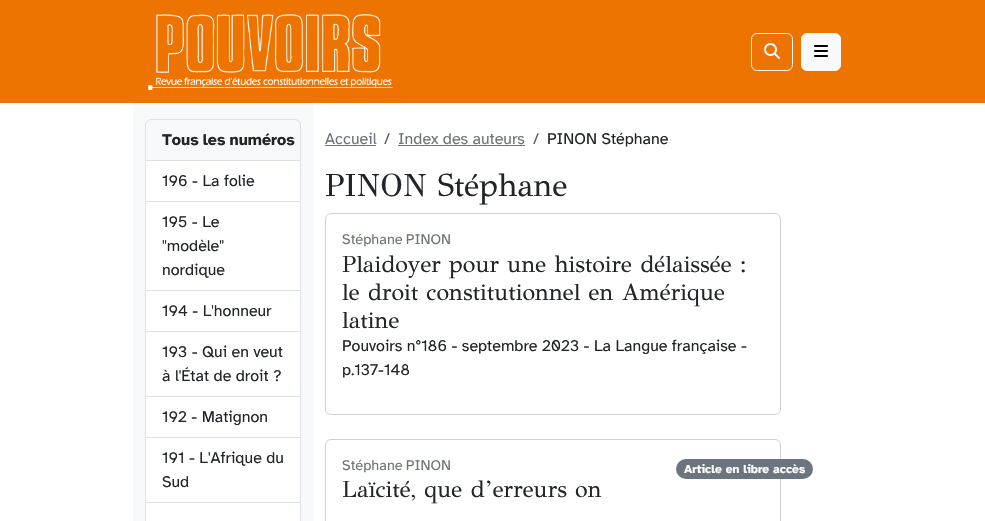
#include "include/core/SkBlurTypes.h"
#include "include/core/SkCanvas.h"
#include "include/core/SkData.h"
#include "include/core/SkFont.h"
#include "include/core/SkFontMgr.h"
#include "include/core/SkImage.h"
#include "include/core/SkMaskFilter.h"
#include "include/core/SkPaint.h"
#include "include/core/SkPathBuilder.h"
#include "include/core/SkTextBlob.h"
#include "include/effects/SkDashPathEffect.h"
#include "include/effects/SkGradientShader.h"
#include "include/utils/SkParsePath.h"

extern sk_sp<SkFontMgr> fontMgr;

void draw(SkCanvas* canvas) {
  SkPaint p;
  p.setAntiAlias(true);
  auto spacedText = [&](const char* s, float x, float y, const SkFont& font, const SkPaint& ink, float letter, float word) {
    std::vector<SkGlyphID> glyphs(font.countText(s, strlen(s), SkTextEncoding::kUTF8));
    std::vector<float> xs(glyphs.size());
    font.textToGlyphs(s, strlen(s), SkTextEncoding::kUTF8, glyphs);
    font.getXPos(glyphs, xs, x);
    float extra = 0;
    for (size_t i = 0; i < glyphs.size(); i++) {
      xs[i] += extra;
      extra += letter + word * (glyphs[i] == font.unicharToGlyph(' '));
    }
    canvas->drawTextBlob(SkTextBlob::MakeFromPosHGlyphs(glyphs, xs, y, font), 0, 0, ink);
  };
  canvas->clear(SK_ColorWHITE);
  p.setColor(SkColorSetRGB(237, 116, 1));
  canvas->drawRect(SkRect::MakeLTRB(0, 0, 985, 103), p);
  canvas->drawImageRect(SkImages::DeferredFromEncodedData(SkData::MakeFromFileName("images/1.png")), SkRect::MakeLTRB(148, 14, 393, 90), SkSamplingOptions());
  p.setStyle(SkPaint::kStroke_Style);
  p.setStrokeWidth(1);
  p.setColor(SkColorSetRGB(248, 249, 250));
  canvas->drawRoundRect(SkRect::MakeLTRB(751.5f, 33.5f, 792.5f, 70.5f), 5.5f, 5.5f, p);
  canvas->drawImageRect(SkImages::DeferredFromEncodedData(SkData::MakeFromFileName("images/2.png")), SkRect::MakeLTRB(764, 43, 780, 59), SkSamplingOptions());
  p.setStyle(SkPaint::kFill_Style);
  canvas->drawRoundRect(SkRect::MakeLTRB(801.5f, 33.5f, 840.5f, 70.5f), 5.5f, 5.5f, p);
  p.setStyle(SkPaint::kStroke_Style);
  canvas->drawRoundRect(SkRect::MakeLTRB(801.5f, 33.5f, 840.5f, 70.5f), 5.5f, 5.5f, p);
  canvas->drawImageRect(SkImages::DeferredFromEncodedData(SkData::MakeFromFileName("images/3.png")), SkRect::MakeLTRB(814, 45, 828, 57), SkSamplingOptions());
  p.setStyle(SkPaint::kFill_Style);
  canvas->drawRect(SkRect::MakeLTRB(133, 103, 313, 521), p);
  p.setStyle(SkPaint::kStroke_Style);
  p.setColor(SkColorSetRGB(222, 226, 230));
  canvas->drawPath(SkPathBuilder().moveTo(151, 119.5f).lineTo(295, 119.5f).cubicTo(298, 119.5f, 300.5f, 122, 300.5f, 125).lineTo(300.5f, 160.5f).lineTo(145.5f, 160.5f).lineTo(145.5f, 125).cubicTo(145.5f, 122, 148, 119.5f, 151, 119.5f).close().detach(), p);
  p.setStyle(SkPaint::kFill_Style);
  p.setColor(SK_ColorWHITE);
  canvas->drawRect(SkRect::MakeLTRB(146, 161, 300, 201), p);
  p.setColor(SkColorSetRGB(222, 226, 230));
  canvas->drawRect(SkRect::MakeLTRB(300, 161, 301, 521), p);
  canvas->drawRect(SkRect::MakeLTRB(145, 201, 301, 202), p);
  canvas->drawRect(SkRect::MakeLTRB(145, 161, 146, 202), p);
  p.setColor(SK_ColorWHITE);
  canvas->drawRect(SkRect::MakeLTRB(146, 202, 300, 290), p);
  p.setColor(SkColorSetRGB(222, 226, 230));
  canvas->drawRect(SkRect::MakeLTRB(145, 290, 301, 291), p);
  canvas->drawRect(SkRect::MakeLTRB(145, 202, 146, 291), p);
  p.setColor(SK_ColorWHITE);
  canvas->drawRect(SkRect::MakeLTRB(146, 291, 300, 331), p);
  p.setColor(SkColorSetRGB(222, 226, 230));
  canvas->drawRect(SkRect::MakeLTRB(145, 331, 301, 332), p);
  canvas->drawRect(SkRect::MakeLTRB(145, 291, 146, 332), p);
  p.setColor(SK_ColorWHITE);
  canvas->drawRect(SkRect::MakeLTRB(146, 332, 300, 396), p);
  p.setColor(SkColorSetRGB(222, 226, 230));
  canvas->drawRect(SkRect::MakeLTRB(145, 396, 301, 397), p);
  canvas->drawRect(SkRect::MakeLTRB(145, 332, 146, 397), p);
  p.setColor(SK_ColorWHITE);
  canvas->drawRect(SkRect::MakeLTRB(146, 397, 300, 437), p);
  p.setColor(SkColorSetRGB(222, 226, 230));
  canvas->drawRect(SkRect::MakeLTRB(145, 437, 301, 438), p);
  canvas->drawRect(SkRect::MakeLTRB(145, 397, 146, 438), p);
  p.setColor(SK_ColorWHITE);
  canvas->drawRect(SkRect::MakeLTRB(146, 438, 300, 502), p);
  p.setColor(SkColorSetRGB(222, 226, 230));
  canvas->drawRect(SkRect::MakeLTRB(145, 502, 301, 503), p);
  canvas->drawRect(SkRect::MakeLTRB(145, 438, 146, 521), p);
  p.setColor(SK_ColorWHITE);
  canvas->drawRect(SkRect::MakeLTRB(146, 503, 300, 521), p);
  p.setColor(SkColorSetRGB(108, 117, 125));
  canvas->drawRect(SkRect::MakeLTRB(325, 145, 376, 146), p);
  canvas->drawRect(SkRect::MakeLTRB(398, 145, 525, 146), p);
  p.setStyle(SkPaint::kStroke_Style);
  p.setColor(SkColorSetRGB(210, 210, 210));
  canvas->drawRoundRect(SkRect::MakeLTRB(325.5f, 213.5f, 780.5f, 414.5f), 5.5f, 5.5f, p);
  canvas->drawRoundRect(SkRect::MakeLTRB(325.5f, 439.5f, 780.5f, 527.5f), 5.5f, 5.5f, p);
  p.setStyle(SkPaint::kFill_Style);
  p.setColor(SkColorSetRGB(108, 117, 125));
  canvas->drawRoundRect(SkRect::MakeLTRB(676, 459, 813, 479), 10, 10, p);
  SkFont font1(fontMgr->matchFamilyStyle("Atkinson Hyperlegible", SkFontStyle::Bold()), 16);
  font1.setSubpixel(true);
  p.setColor(SkColorSetRGB(33, 37, 41));
  spacedText("Tous les numéros", 162, 145, font1, p, 0, -1);
  SkFont font2(fontMgr->matchFamilyStyle("Atkinson Hyperlegible", SkFontStyle::Normal()), 16);
  font2.setSubpixel(true);
  canvas->drawString("196 - La folie", 162, 186, font2, p);
  canvas->drawString("195 - Le", 162, 227, font2, p);
  canvas->drawString("\"modèle\"", 162, 251, font2, p);
  canvas->drawString("nordique", 162, 275, font2, p);
  canvas->drawString("194 - L'honneur", 162, 316, font2, p);
  canvas->drawString("193 - Qui en veut", 162, 357, font2, p);
  canvas->drawString("à l'État de droit ?", 162, 381, font2, p);
  canvas->drawString("192 - Matignon", 162, 422, font2, p);
  canvas->drawString("191 - L'Afrique du", 162, 463, font2, p);
  canvas->drawString("Sud", 162, 487, font2, p);
  p.setColor(SkColorSetRGB(108, 117, 125));
  canvas->drawString("Accueil", 325, 144, font2, p);
  p.setColor(SkColorSetRGB(89, 92, 95));
  canvas->drawString("/", 384, 144, font2, p);
  p.setColor(SkColorSetRGB(108, 117, 125));
  canvas->drawString("Index des auteurs", 398, 144, font2, p);
  p.setColor(SkColorSetRGB(89, 92, 95));
  canvas->drawString("/", 533, 144, font2, p);
  p.setColor(SkColorSetRGB(33, 37, 41));
  canvas->drawString("PINON Stéphane", 547, 144, font2, p);
  SkFont font3(fontMgr->matchFamilyStyle("GFS Didot", SkFontStyle::Normal()), 32);
  font3.setSubpixel(true);
  canvas->drawString("PINON Stéphane", 325, 196, font3, p);
  SkFont font4(fontMgr->matchFamilyStyle("Atkinson Hyperlegible", SkFontStyle::Normal()), 14.5f);
  font4.setSubpixel(true);
  p.setColor(SkColorSetRGB(108, 117, 125));
  spacedText("Stéphane PINON", 342, 244, font4, p, 0, -1);
  SkFont font5(fontMgr->matchFamilyStyle("GFS Didot", SkFontStyle::Normal()), 23.4f);
  font5.setSubpixel(true);
  p.setColor(SkColorSetRGB(33, 37, 41));
  canvas->drawString("Plaidoyer pour une histoire délaissée :", 342, 272, font5, p);
  canvas->drawString("le droit constitutionnel en Amérique", 342, 300, font5, p);
  canvas->drawString("latine", 342, 328, font5, p);
  canvas->drawString("Pouvoirs n°186 - septembre 2023 - La Langue française -", 342, 351, font2, p);
  canvas->drawString("p.137-148", 342, 375, font2, p);
  p.setColor(SkColorSetRGB(108, 117, 125));
  spacedText("Stéphane PINON", 342, 470, font4, p, 0, -1);
  p.setColor(SkColorSetRGB(33, 37, 41));
  canvas->drawString("Laïcité, que d’erreurs on", 342, 497, font5, p);
  SkFont font6(fontMgr->matchFamilyStyle("Atkinson Hyperlegible", SkFontStyle::Bold()), 12);
  font6.setSubpixel(true);
  p.setColor(SK_ColorWHITE);
  canvas->drawString("Article en libre accès", 684, 473, font6, p);
}
